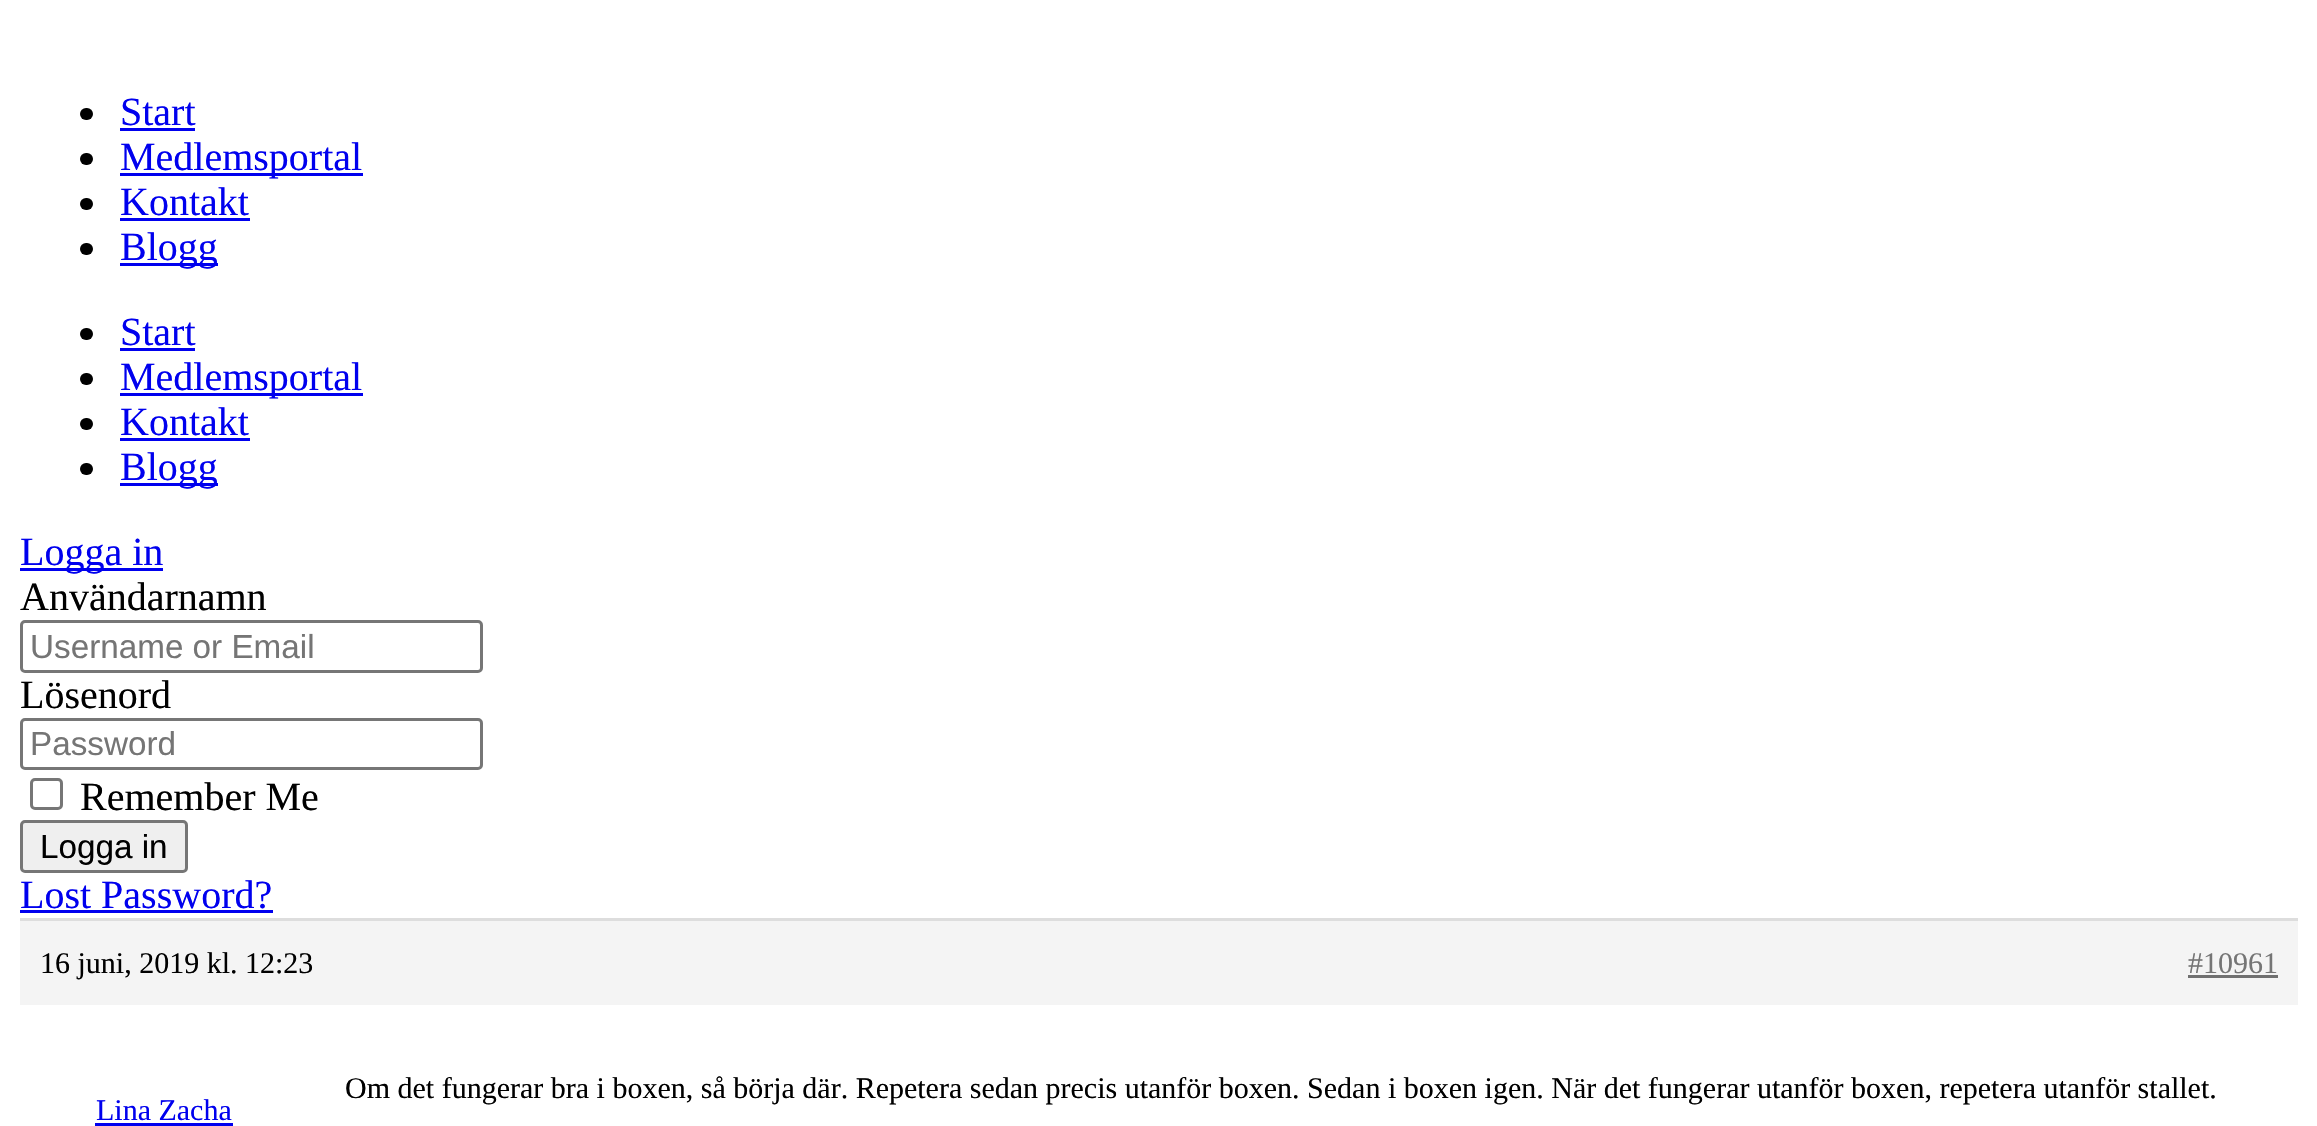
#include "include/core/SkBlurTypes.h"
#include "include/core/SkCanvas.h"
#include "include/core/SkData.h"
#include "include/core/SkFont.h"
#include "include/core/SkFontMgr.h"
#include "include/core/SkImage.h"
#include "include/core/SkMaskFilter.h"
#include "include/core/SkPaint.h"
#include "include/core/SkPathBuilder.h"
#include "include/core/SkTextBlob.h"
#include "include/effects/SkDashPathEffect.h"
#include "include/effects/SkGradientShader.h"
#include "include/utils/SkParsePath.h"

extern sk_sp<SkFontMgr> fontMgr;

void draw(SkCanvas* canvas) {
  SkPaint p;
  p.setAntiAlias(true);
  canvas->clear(SK_ColorWHITE);
  p.setColor(SK_ColorBLACK);
  canvas->drawRoundRect(SkRect::MakeLTRB(80, 108, 93, 120), 6, 6, p);
  p.setColor(SkColorSetRGB(0, 0, 238));
  canvas->drawRect(SkRect::MakeLTRB(120, 128, 195, 131), p);
  p.setColor(SK_ColorBLACK);
  canvas->drawRoundRect(SkRect::MakeLTRB(80, 153, 93, 165), 6, 6, p);
  p.setColor(SkColorSetRGB(0, 0, 238));
  canvas->drawRect(SkRect::MakeLTRB(120, 173, 363, 176), p);
  p.setColor(SK_ColorBLACK);
  canvas->drawRoundRect(SkRect::MakeLTRB(80, 198, 93, 210), 6, 6, p);
  p.setColor(SkColorSetRGB(0, 0, 238));
  canvas->drawRect(SkRect::MakeLTRB(120, 218, 250, 221), p);
  p.setColor(SK_ColorBLACK);
  canvas->drawRoundRect(SkRect::MakeLTRB(80, 243, 93, 255), 6, 6, p);
  p.setColor(SkColorSetRGB(0, 0, 238));
  canvas->drawRect(SkRect::MakeLTRB(120, 263, 218, 266), p);
  p.setColor(SK_ColorBLACK);
  canvas->drawRoundRect(SkRect::MakeLTRB(80, 328, 93, 340), 6, 6, p);
  p.setColor(SkColorSetRGB(0, 0, 238));
  canvas->drawRect(SkRect::MakeLTRB(120, 348, 195, 351), p);
  p.setColor(SK_ColorBLACK);
  canvas->drawRoundRect(SkRect::MakeLTRB(80, 373, 93, 385), 6, 6, p);
  p.setColor(SkColorSetRGB(0, 0, 238));
  canvas->drawRect(SkRect::MakeLTRB(120, 393, 363, 396), p);
  p.setColor(SK_ColorBLACK);
  canvas->drawRoundRect(SkRect::MakeLTRB(80, 418, 93, 430), 6, 6, p);
  p.setColor(SkColorSetRGB(0, 0, 238));
  canvas->drawRect(SkRect::MakeLTRB(120, 438, 250, 441), p);
  p.setColor(SK_ColorBLACK);
  canvas->drawRoundRect(SkRect::MakeLTRB(80, 463, 93, 475), 6, 6, p);
  p.setColor(SkColorSetRGB(0, 0, 238));
  canvas->drawRect(SkRect::MakeLTRB(120, 483, 218, 486), p);
  canvas->drawRect(SkRect::MakeLTRB(20, 568, 163, 571), p);
  p.setStyle(SkPaint::kStroke_Style);
  p.setStrokeWidth(3);
  p.setColor(SkColorSetRGB(118, 118, 118));
  canvas->drawRoundRect(SkRect::MakeLTRB(21.5f, 621.5f, 481.5f, 671.5f), 3.5f, 3.5f, p);
  canvas->drawRoundRect(SkRect::MakeLTRB(21.5f, 719.5f, 481.5f, 768.5f), 3.5f, 3.5f, p);
  canvas->drawRoundRect(SkRect::MakeLTRB(31.5f, 779.5f, 61.5f, 808.5f), 3.5f, 3.5f, p);
  p.setStyle(SkPaint::kFill_Style);
  p.setColor(SkColorSetRGB(239, 239, 239));
  canvas->drawRoundRect(SkRect::MakeLTRB(21.5f, 821.5f, 186.5f, 871.5f), 3.5f, 3.5f, p);
  p.setStyle(SkPaint::kStroke_Style);
  p.setColor(SkColorSetRGB(118, 118, 118));
  canvas->drawRoundRect(SkRect::MakeLTRB(21.5f, 821.5f, 186.5f, 871.5f), 3.5f, 3.5f, p);
  p.setStyle(SkPaint::kFill_Style);
  p.setColor(SkColorSetRGB(0, 0, 238));
  canvas->drawRect(SkRect::MakeLTRB(20, 910, 273, 913), p);
  p.setColor(SkColorSetRGB(244, 244, 244));
  canvas->drawRect(SkRect::MakeLTRB(20, 921, 2298, 1005), p);
  p.setColor(SkColorSetRGB(221, 221, 221));
  canvas->drawRect(SkRect::MakeLTRB(20, 918, 2298, 921), p);
  p.setColor(SkColorSetRGB(112, 112, 112));
  canvas->drawRect(SkRect::MakeLTRB(2188, 975, 2278, 978), p);
  p.setColor(SkColorSetRGB(0, 0, 238));
  canvas->drawRect(SkRect::MakeLTRB(95, 1123, 233, 1126), p);
  SkFont font1(fontMgr->matchFamilyStyle("Liberation Serif", SkFontStyle::Normal()), 40);
  font1.setSubpixel(true);
  canvas->drawString("Start", 120, 125, font1, p);
  canvas->drawString("Medlemsportal", 120, 170, font1, p);
  canvas->drawString("Kontakt", 120, 215, font1, p);
  canvas->drawString("Blogg", 120, 260, font1, p);
  canvas->drawString("Start", 120, 345, font1, p);
  canvas->drawString("Medlemsportal", 120, 390, font1, p);
  canvas->drawString("Kontakt", 120, 435, font1, p);
  canvas->drawString("Blogg", 120, 480, font1, p);
  canvas->drawString("Logga in", 20, 565, font1, p);
  p.setColor(SK_ColorBLACK);
  canvas->drawString("Användarnamn", 20, 610, font1, p);
  SkFont font2(fontMgr->matchFamilyStyle("Liberation Sans", SkFontStyle::Normal()), 33.25f);
  font2.setSubpixel(true);
  p.setColor(SkColorSetRGB(117, 117, 117));
  canvas->drawString("Username or Email", 30, 658, font2, p);
  p.setColor(SK_ColorBLACK);
  canvas->drawString("Lösenord", 20, 708, font1, p);
  p.setColor(SkColorSetRGB(117, 117, 117));
  canvas->drawString("Password", 30, 755, font2, p);
  p.setColor(SK_ColorBLACK);
  canvas->drawString("Remember Me", 80, 810, font1, p);
  canvas->drawString("Logga in", 40, 858, font2, p);
  p.setColor(SkColorSetRGB(0, 0, 238));
  canvas->drawString("Lost Password?", 20, 908, font1, p);
  SkFont font3(fontMgr->matchFamilyStyle("Liberation Serif", SkFontStyle::Normal()), 30);
  font3.setSubpixel(true);
  p.setColor(SK_ColorBLACK);
  canvas->drawString("16 juni, 2019 kl. 12:23", 40, 973, font3, p);
  p.setColor(SkColorSetRGB(117, 117, 117));
  canvas->drawString("#10961", 2188, 973, font3, p);
  p.setColor(SK_ColorBLACK);
  canvas->drawString("Om det fungerar bra i boxen, så börja där. Repetera sedan precis utanför boxen. Sedan i boxen igen. När det fungerar utanför boxen, repetera utanför stallet.", 345, 1098, font3, p);
  p.setColor(SkColorSetRGB(0, 0, 238));
  canvas->drawString("Lina Zacha", 96, 1120, font3, p);
}
